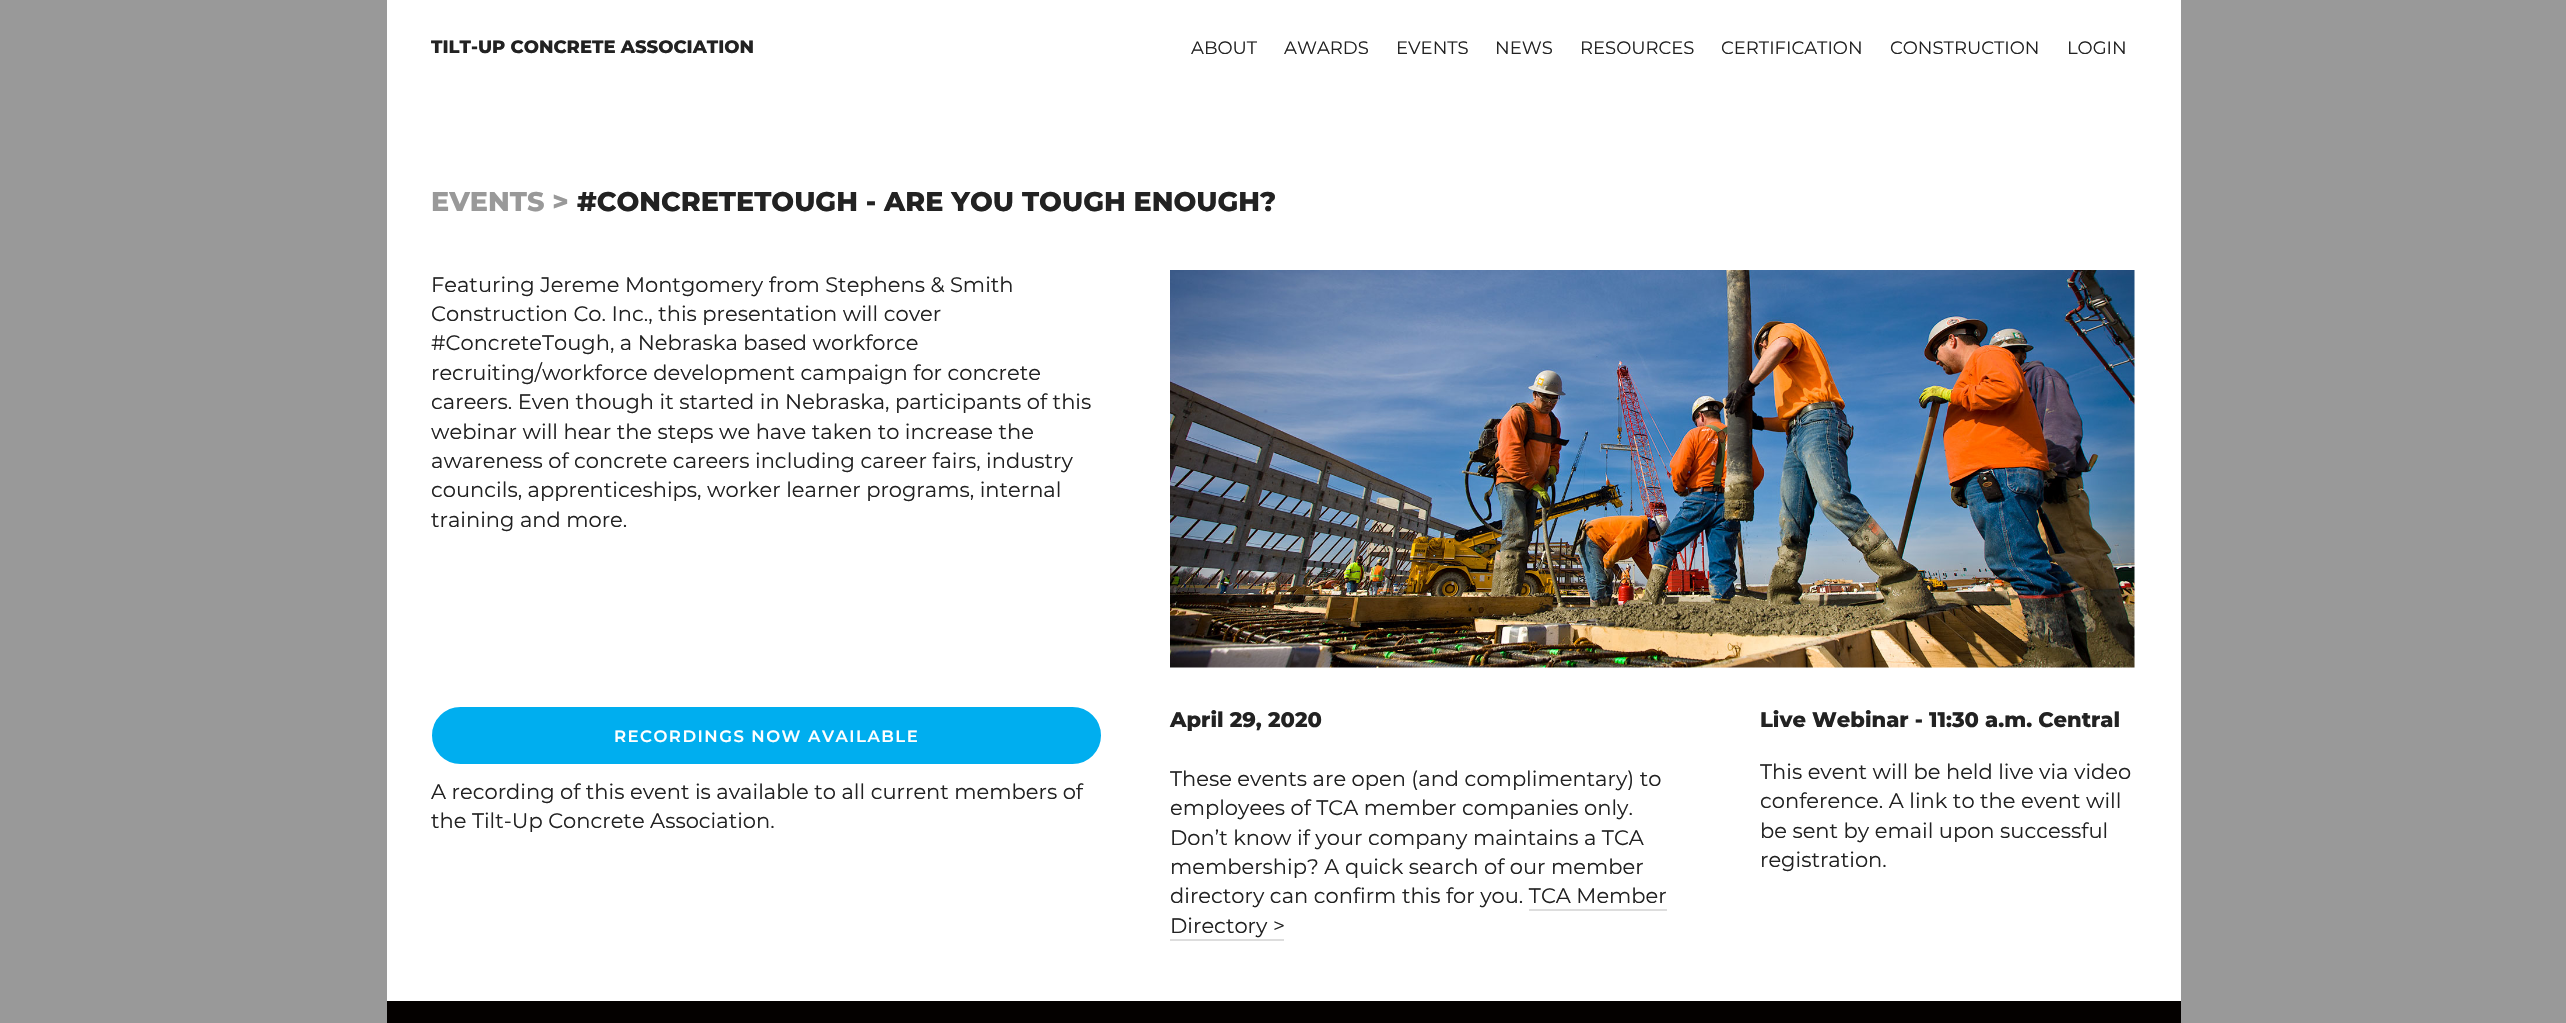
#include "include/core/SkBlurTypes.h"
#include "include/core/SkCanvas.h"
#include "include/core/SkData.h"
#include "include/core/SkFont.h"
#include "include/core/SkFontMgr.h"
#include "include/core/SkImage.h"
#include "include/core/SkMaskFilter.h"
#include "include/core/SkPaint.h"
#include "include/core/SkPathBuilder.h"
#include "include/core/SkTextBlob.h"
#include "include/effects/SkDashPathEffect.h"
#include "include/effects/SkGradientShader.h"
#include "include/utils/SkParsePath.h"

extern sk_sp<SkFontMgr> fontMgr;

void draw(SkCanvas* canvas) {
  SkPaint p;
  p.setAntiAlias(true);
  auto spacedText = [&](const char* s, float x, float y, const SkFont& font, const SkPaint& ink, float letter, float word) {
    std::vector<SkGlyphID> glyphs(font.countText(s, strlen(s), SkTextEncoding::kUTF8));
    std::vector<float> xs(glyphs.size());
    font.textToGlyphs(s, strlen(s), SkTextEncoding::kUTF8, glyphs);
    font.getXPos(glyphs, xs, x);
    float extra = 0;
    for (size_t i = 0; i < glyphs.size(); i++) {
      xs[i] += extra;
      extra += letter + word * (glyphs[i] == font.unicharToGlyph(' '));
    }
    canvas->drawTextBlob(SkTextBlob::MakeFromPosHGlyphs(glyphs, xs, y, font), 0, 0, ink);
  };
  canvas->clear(SkColorSetRGB(153, 153, 153));
  p.setColor(SK_ColorWHITE);
  canvas->drawRect(SkRect::MakeLTRB(387, 0, 2181, 1001), p);
  canvas->drawImageRect(SkImages::DeferredFromEncodedData(SkData::MakeFromFileName("images/1.png")), SkRect::MakeLTRB(1170, 270, 2135, 668), SkSamplingOptions());
  p.setColor(SkColorSetRGB(0, 174, 239));
  canvas->drawRoundRect(SkRect::MakeLTRB(433, 708, 1100, 763), 27.5f, 27.5f, p);
  p.setStyle(SkPaint::kStroke_Style);
  p.setStrokeWidth(2);
  canvas->drawRoundRect(SkRect::MakeLTRB(433, 708, 1100, 763), 27.5f, 27.5f, p);
  p.setStyle(SkPaint::kFill_Style);
  p.setColor(SkColorSetRGB(221, 221, 221));
  canvas->drawRect(SkRect::MakeLTRB(1529, 909, 1667, 911), p);
  canvas->drawRect(SkRect::MakeLTRB(1170, 939, 1284, 941), p);
  p.setColor(SkColorSetRGB(4, 1, 0));
  canvas->drawRect(SkRect::MakeLTRB(387, 1001, 2181, 1023), p);
  SkFont font1(fontMgr->matchFamilyStyle("Montserrat", SkFontStyle(800, SkFontStyle::kNormal_Width, SkFontStyle::kUpright_Slant)), 18);
  font1.setSubpixel(true);
  p.setColor(SkColorSetRGB(34, 34, 34));
  canvas->drawString("TILT-UP CONCRETE ASSOCIATION", 431, 53, font1, p);
  SkFont font2(fontMgr->matchFamilyStyle("Montserrat", SkFontStyle::Normal()), 18);
  font2.setSubpixel(true);
  canvas->drawString("ABOUT", 1191, 54, font2, p);
  canvas->drawString("AWARDS", 1284, 54, font2, p);
  canvas->drawString("EVENTS", 1396, 54, font2, p);
  canvas->drawString("NEWS", 1495, 54, font2, p);
  canvas->drawString("RESOURCES", 1580, 54, font2, p);
  canvas->drawString("CERTIFICATION", 1721, 54, font2, p);
  canvas->drawString("CONSTRUCTION", 1890, 54, font2, p);
  canvas->drawString("LOGIN", 2067, 54, font2, p);
  SkFont font3(fontMgr->matchFamilyStyle("Montserrat", SkFontStyle(800, SkFontStyle::kNormal_Width, SkFontStyle::kUpright_Slant)), 27);
  font3.setSubpixel(true);
  p.setColor(SkColorSetRGB(153, 153, 153));
  canvas->drawString("EVENTS >", 431, 211, font3, p);
  p.setColor(SkColorSetRGB(34, 34, 34));
  canvas->drawString("#CONCRETETOUGH - ARE YOU TOUGH ENOUGH?", 577, 211, font3, p);
  SkFont font4(fontMgr->matchFamilyStyle("Montserrat", SkFontStyle::Normal()), 21);
  font4.setSubpixel(true);
  canvas->drawString("Featuring Jereme Montgomery from Stephens & Smith", 431, 292, font4, p);
  canvas->drawString("Construction Co. Inc., this presentation will cover", 431, 321, font4, p);
  canvas->drawString("#ConcreteTough, a Nebraska based workforce", 431, 350, font4, p);
  canvas->drawString("recruiting/workforce development campaign for concrete", 431, 380, font4, p);
  canvas->drawString("careers. Even though it started in Nebraska, participants of this", 431, 409, font4, p);
  canvas->drawString("webinar will hear the steps we have taken to increase the", 431, 439, font4, p);
  canvas->drawString("awareness of concrete careers including career fairs, industry", 431, 468, font4, p);
  canvas->drawString("councils, apprenticeships, worker learner programs, internal", 431, 497, font4, p);
  canvas->drawString("training and more.", 431, 527, font4, p);
  SkFont font5(fontMgr->matchFamilyStyle("Montserrat", SkFontStyle(600, SkFontStyle::kNormal_Width, SkFontStyle::kUpright_Slant)), 16.5f);
  font5.setSubpixel(true);
  p.setColor(SK_ColorWHITE);
  spacedText("RECORDINGS NOW AVAILABLE", 614, 742, font5, p, 1.5f, 0);
  p.setColor(SkColorSetRGB(34, 34, 34));
  canvas->drawString("A recording of this event is available to all current members of", 431, 799, font4, p);
  canvas->drawString("the Tilt-Up Concrete Association.", 431, 828, font4, p);
  SkFont font6(fontMgr->matchFamilyStyle("Montserrat", SkFontStyle(800, SkFontStyle::kNormal_Width, SkFontStyle::kUpright_Slant)), 21);
  font6.setSubpixel(true);
  canvas->drawString("April 29, 2020", 1170, 727, font6, p);
  canvas->drawString("These events are open (and complimentary) to", 1170, 786, font4, p);
  canvas->drawString("employees of TCA member companies only.", 1170, 815, font4, p);
  canvas->drawString("Don’t know if your company maintains a TCA", 1170, 845, font4, p);
  canvas->drawString("membership? A quick search of our member", 1170, 874, font4, p);
  canvas->drawString("directory can confirm this for you. TCA Member", 1170, 903, font4, p);
  canvas->drawString("Directory >", 1170, 933, font4, p);
  canvas->drawString("Live Webinar - 11:30 a.m. Central", 1760, 727, font6, p);
  canvas->drawString("This event will be held live via video", 1760, 779, font4, p);
  canvas->drawString("conference. A link to the event will", 1760, 808, font4, p);
  canvas->drawString("be sent by email upon successful", 1760, 838, font4, p);
  canvas->drawString("registration.", 1760, 867, font4, p);
}
